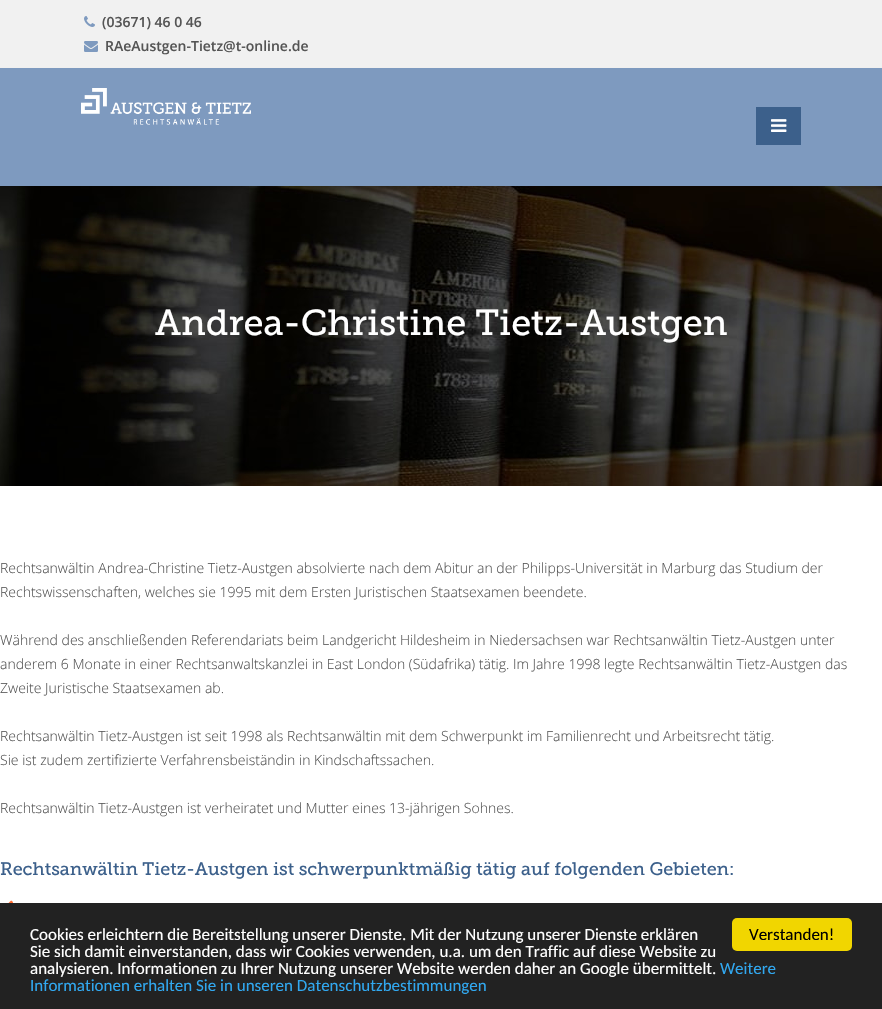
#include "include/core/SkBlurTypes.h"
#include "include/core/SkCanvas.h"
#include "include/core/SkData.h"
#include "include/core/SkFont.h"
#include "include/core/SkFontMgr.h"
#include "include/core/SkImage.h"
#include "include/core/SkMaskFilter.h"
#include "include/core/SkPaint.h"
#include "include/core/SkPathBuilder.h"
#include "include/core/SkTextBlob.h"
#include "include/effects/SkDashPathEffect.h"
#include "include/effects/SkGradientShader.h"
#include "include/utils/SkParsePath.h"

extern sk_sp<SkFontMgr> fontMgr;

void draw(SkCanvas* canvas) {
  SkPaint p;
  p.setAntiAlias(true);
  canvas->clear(SK_ColorWHITE);
  p.setColor(SkColorSetRGB(241, 241, 241));
  canvas->drawRect(SkRect::MakeLTRB(0, 0, 882, 68), p);
  canvas->drawImageRect(SkImages::DeferredFromEncodedData(SkData::MakeFromFileName("images/1.png")), SkRect::MakeLTRB(84, 16, 95, 27), SkSamplingOptions());
  canvas->drawImageRect(SkImages::DeferredFromEncodedData(SkData::MakeFromFileName("images/2.png")), SkRect::MakeLTRB(84, 41, 98, 52), SkSamplingOptions());
  canvas->drawImageRect(SkImages::DeferredFromEncodedData(SkData::MakeFromFileName("images/5.png")), SkRect::MakeLTRB(0, 186, 882, 486), SkSamplingOptions());
  p.setColor(SkColorSetARGB(26, 0, 0, 0));
  p.setMaskFilter(SkMaskFilter::MakeBlur(kNormal_SkBlurStyle, 1.5f));
  canvas->drawRect(SkRect::MakeLTRB(0, 71, 882, 189), p);
  p.setMaskFilter(nullptr);
  p.setColor(SkColorSetRGB(126, 154, 191));
  canvas->drawRect(SkRect::MakeLTRB(0, 68, 882, 186), p);
  canvas->drawImageRect(SkImages::DeferredFromEncodedData(SkData::MakeFromFileName("images/3.png")), SkRect::MakeLTRB(81, 88, 251, 125), SkSamplingOptions());
  p.setColor(SkColorSetRGB(60, 96, 139));
  canvas->drawRect(SkRect::MakeLTRB(756, 107, 801, 145), p);
  canvas->drawImageRect(SkImages::DeferredFromEncodedData(SkData::MakeFromFileName("images/4.png")), SkRect::MakeLTRB(771, 119, 787, 132), SkSamplingOptions());
  canvas->drawImageRect(SkImages::DeferredFromEncodedData(SkData::MakeFromFileName("images/6.png")), SkRect::MakeLTRB(8, 900, 13, 903), SkSamplingOptions());
  p.setColor(SkColorSetRGB(34, 34, 34));
  canvas->drawRect(SkRect::MakeLTRB(0, 903, 882, 1009), p);
  p.setColor(SkColorSetRGB(241, 214, 0));
  canvas->drawRoundRect(SkRect::MakeLTRB(732, 918, 852, 951), 5, 5, p);
  SkFont font1(fontMgr->matchFamilyStyle("Open Sans", SkFontStyle(600, SkFontStyle::kNormal_Width, SkFontStyle::kUpright_Slant)), 14);
  font1.setSubpixel(true);
  p.setColor(SkColorSetRGB(85, 85, 85));
  canvas->drawString("(03671) 46 0 46", 102, 27, font1, p);
  canvas->drawString("RAeAustgen-Tietz@t-online.de", 105, 51, font1, p);
  SkFont font2(fontMgr->matchFamilyStyle("Museo Slab", SkFontStyle::Normal()), 36);
  font2.setSubpixel(true);
  p.setColor(SK_ColorWHITE);
  canvas->drawString("Andrea-Christine Tietz-Austgen", 155, 335, font2, p);
  SkFont font3(fontMgr->matchFamilyStyle("Open Sans", SkFontStyle(300, SkFontStyle::kNormal_Width, SkFontStyle::kUpright_Slant)), 14);
  font3.setSubpixel(true);
  p.setColor(SkColorSetRGB(85, 85, 85));
  canvas->drawString("Rechtsanwältin Andrea-Christine Tietz-Austgen absolvierte nach dem Abitur an der Philipps-Universität in Marburg das Studium der", 0, 573, font3, p);
  canvas->drawString("Rechtswissenschaften, welches sie 1995 mit dem Ersten Juristischen Staatsexamen beendete.", 0, 597, font3, p);
  canvas->drawString("Während des anschließenden Referendariats beim Landgericht Hildesheim in Niedersachsen war Rechtsanwältin Tietz-Austgen unter", 0, 645, font3, p);
  canvas->drawString("anderem 6 Monate in einer Rechtsanwaltskanzlei in East London (Südafrika) tätig. Im Jahre 1998 legte Rechtsanwältin Tietz-Austgen das", 0, 669, font3, p);
  canvas->drawString("Zweite Juristische Staatsexamen ab.", 0, 693, font3, p);
  canvas->drawString("Rechtsanwältin Tietz-Austgen ist seit 1998 als Rechtsanwältin mit dem Schwerpunkt im Familienrecht und Arbeitsrecht tätig.", 0, 741, font3, p);
  canvas->drawString("Sie ist zudem zertifizierte Verfahrensbeiständin in Kindschaftssachen.", 0, 765, font3, p);
  canvas->drawString("Rechtsanwältin Tietz-Austgen ist verheiratet und Mutter eines 13-jährigen Sohnes.", 0, 813, font3, p);
  SkFont font4(fontMgr->matchFamilyStyle("Museo Slab", SkFontStyle::Normal()), 18);
  font4.setSubpixel(true);
  p.setColor(SkColorSetRGB(60, 96, 139));
  canvas->drawString("Rechtsanwältin Tietz-Austgen ist schwerpunktmäßig tätig auf folgenden Gebieten:", 0, 875, font4, p);
  SkFont font5(fontMgr->matchFamilyStyle("Carlito", SkFontStyle::Normal()), 17);
  font5.setSubpixel(true);
  p.setColor(SK_ColorWHITE);
  canvas->drawString("Cookies erleichtern die Bereitstellung unserer Dienste. Mit der Nutzung unserer Dienste erklären", 30, 940, font5, p);
  canvas->drawString("Sie sich damit einverstanden, dass wir Cookies verwenden, u.a. um den Traffic auf diese Website zu", 30, 957, font5, p);
  canvas->drawString("analysieren. Informationen zu Ihrer Nutzung unserer Website werden daher an Google übermittelt.", 30, 974, font5, p);
  p.setColor(SkColorSetRGB(49, 168, 240));
  canvas->drawString("Weitere", 720, 974, font5, p);
  canvas->drawString("Informationen erhalten Sie in unseren Datenschutzbestimmungen", 30, 991, font5, p);
  p.setColor(SK_ColorBLACK);
  canvas->drawString("Verstanden!", 749, 940, font5, p);
}
